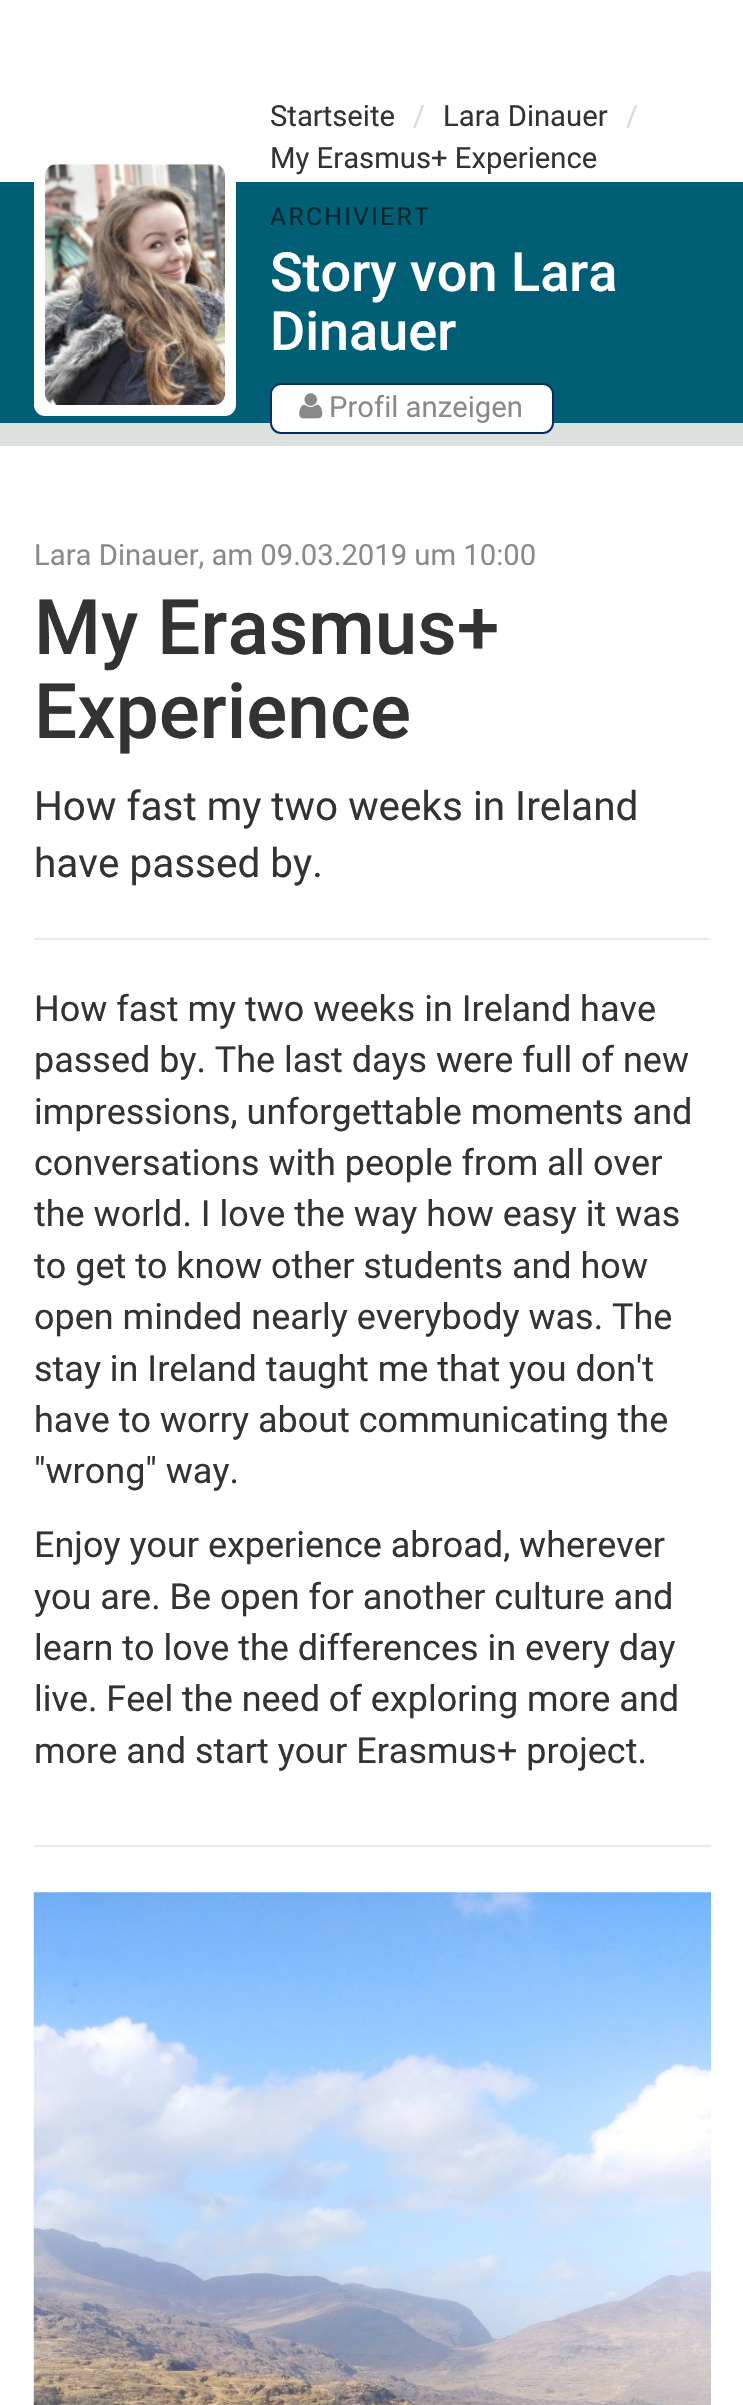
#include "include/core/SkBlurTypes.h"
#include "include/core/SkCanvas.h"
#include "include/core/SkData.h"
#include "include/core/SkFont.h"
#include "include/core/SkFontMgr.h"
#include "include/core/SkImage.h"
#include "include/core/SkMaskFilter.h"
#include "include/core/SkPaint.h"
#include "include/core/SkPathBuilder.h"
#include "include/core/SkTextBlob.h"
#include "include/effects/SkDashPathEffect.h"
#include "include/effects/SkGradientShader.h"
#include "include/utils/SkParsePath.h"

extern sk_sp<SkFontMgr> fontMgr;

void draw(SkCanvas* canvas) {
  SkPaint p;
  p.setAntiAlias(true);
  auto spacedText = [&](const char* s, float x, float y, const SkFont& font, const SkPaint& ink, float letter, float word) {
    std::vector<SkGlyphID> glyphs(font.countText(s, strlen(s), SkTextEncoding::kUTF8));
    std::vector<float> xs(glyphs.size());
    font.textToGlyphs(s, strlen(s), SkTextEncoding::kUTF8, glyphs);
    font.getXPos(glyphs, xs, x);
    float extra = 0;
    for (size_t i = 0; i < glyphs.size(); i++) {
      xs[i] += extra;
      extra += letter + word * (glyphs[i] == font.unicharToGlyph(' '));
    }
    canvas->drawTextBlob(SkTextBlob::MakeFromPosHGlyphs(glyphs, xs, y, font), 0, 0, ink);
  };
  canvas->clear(SK_ColorWHITE);
  p.setColor(SkColorSetRGB(0, 94, 117));
  canvas->drawRect(SkRect::MakeLTRB(0, 182, 743, 423), p);
  p.setColor(SkColorSetRGB(218, 225, 222));
  canvas->drawRect(SkRect::MakeLTRB(0, 423, 743, 446), p);
  p.setColor(SK_ColorWHITE);
  canvas->drawRoundRect(SkRect::MakeLTRB(39.5f, 158.5f, 230.5f, 410.5f), 5.5f, 5.5f, p);
  p.setStyle(SkPaint::kStroke_Style);
  p.setStrokeWidth(11);
  canvas->drawRoundRect(SkRect::MakeLTRB(39.5f, 158.5f, 230.5f, 410.5f), 5.5f, 5.5f, p);
  canvas->drawImageRect(SkImages::DeferredFromEncodedData(SkData::MakeFromFileName("images/1.png")), SkRect::MakeLTRB(45, 164, 225, 405), SkSamplingOptions());
  p.setStyle(SkPaint::kFill_Style);
  canvas->drawRoundRect(SkRect::MakeLTRB(271, 384, 553, 433), 10, 10, p);
  p.setStyle(SkPaint::kStroke_Style);
  p.setStrokeWidth(2);
  p.setColor(SkColorSetRGB(7, 47, 98));
  canvas->drawRoundRect(SkRect::MakeLTRB(271, 384, 553, 433), 10, 10, p);
  canvas->drawImageRect(SkImages::DeferredFromEncodedData(SkData::MakeFromFileName("images/2.png")), SkRect::MakeLTRB(299, 393, 323, 419), SkSamplingOptions());
  p.setStyle(SkPaint::kFill_Style);
  p.setColor(SkColorSetRGB(233, 234, 237));
  canvas->drawRect(SkRect::MakeLTRB(34, 938, 711, 940), p);
  canvas->drawRect(SkRect::MakeLTRB(34, 1845, 711, 1847), p);
  canvas->drawImageRect(SkImages::DeferredFromEncodedData(SkData::MakeFromFileName("images/3.png")), SkRect::MakeLTRB(33, 1892, 711, 2405), SkSamplingOptions());
  SkFont font1(fontMgr->matchFamilyStyle("Roboto", SkFontStyle::Normal()), 29.25f);
  font1.setSubpixel(true);
  p.setColor(SkColorSetRGB(51, 51, 51));
  canvas->drawString("Startseite", 270, 126, font1, p);
  p.setColor(SkColorSetRGB(218, 218, 218));
  canvas->drawString("/", 413, 126, font1, p);
  p.setColor(SkColorSetRGB(51, 51, 51));
  canvas->drawString("Lara Dinauer", 443, 126, font1, p);
  p.setColor(SkColorSetRGB(218, 218, 218));
  canvas->drawString("/", 626, 126, font1, p);
  p.setColor(SkColorSetRGB(51, 51, 51));
  canvas->drawString("My Erasmus+ Experience", 270, 168, font1, p);
  SkFont font2(fontMgr->matchFamilyStyle("Roboto", SkFontStyle::Normal()), 24.75f);
  font2.setSubpixel(true);
  p.setColor(SkColorSetRGB(0, 38, 47));
  spacedText("ARCHIVIERT", 270, 225, font2, p, 2.25f, 0);
  SkFont font3(fontMgr->matchFamilyStyle("Roboto", SkFontStyle(500, SkFontStyle::kNormal_Width, SkFontStyle::kUpright_Slant)), 54);
  font3.setSubpixel(true);
  p.setColor(SK_ColorWHITE);
  canvas->drawString("Story von Lara", 270, 291, font3, p);
  canvas->drawString("Dinauer", 270, 350, font3, p);
  p.setColor(SkColorSetRGB(138, 138, 138));
  canvas->drawString("Profil anzeigen", 329, 417, font1, p);
  canvas->drawString("Lara Dinauer, am 09.03.2019 um 10:00", 34, 565, font1, p);
  SkFont font4(fontMgr->matchFamilyStyle("Roboto", SkFontStyle(500, SkFontStyle::kNormal_Width, SkFontStyle::kUpright_Slant)), 76.5f);
  font4.setSubpixel(true);
  p.setColor(SkColorSetRGB(51, 51, 51));
  canvas->drawString("My Erasmus+", 34, 654, font4, p);
  canvas->drawString("Experience", 34, 738, font4, p);
  SkFont font5(fontMgr->matchFamilyStyle("Roboto", SkFontStyle::Normal()), 40.5f);
  font5.setSubpixel(true);
  canvas->drawString("How fast my two weeks in Ireland", 34, 820, font5, p);
  canvas->drawString("have passed by.", 34, 877, font5, p);
  SkFont font6(fontMgr->matchFamilyStyle("Roboto", SkFontStyle::Normal()), 36);
  font6.setSubpixel(true);
  canvas->drawString("How fast my two weeks in Ireland have", 34, 1021, font6, p);
  canvas->drawString("passed by. The last days were full of new", 34, 1072, font6, p);
  canvas->drawString("impressions, unforgettable moments and", 34, 1124, font6, p);
  canvas->drawString("conversations with people from all over", 34, 1175, font6, p);
  canvas->drawString("the world. I love the way how easy it was", 34, 1226, font6, p);
  canvas->drawString("to get to know other students and how", 34, 1278, font6, p);
  canvas->drawString("open minded nearly everybody was. The", 34, 1329, font6, p);
  canvas->drawString("stay in Ireland taught me that you don't", 34, 1381, font6, p);
  canvas->drawString("have to worry about communicating the", 34, 1432, font6, p);
  canvas->drawString("\"wrong\" way.", 34, 1483, font6, p);
  canvas->drawString("Enjoy your experience abroad, wherever", 34, 1557, font6, p);
  canvas->drawString("you are. Be open for another culture and", 34, 1609, font6, p);
  canvas->drawString("learn to love the differences in every day", 34, 1660, font6, p);
  canvas->drawString("live. Feel the need of exploring more and", 34, 1711, font6, p);
  canvas->drawString("more and start your Erasmus+ project.", 34, 1763, font6, p);
}
